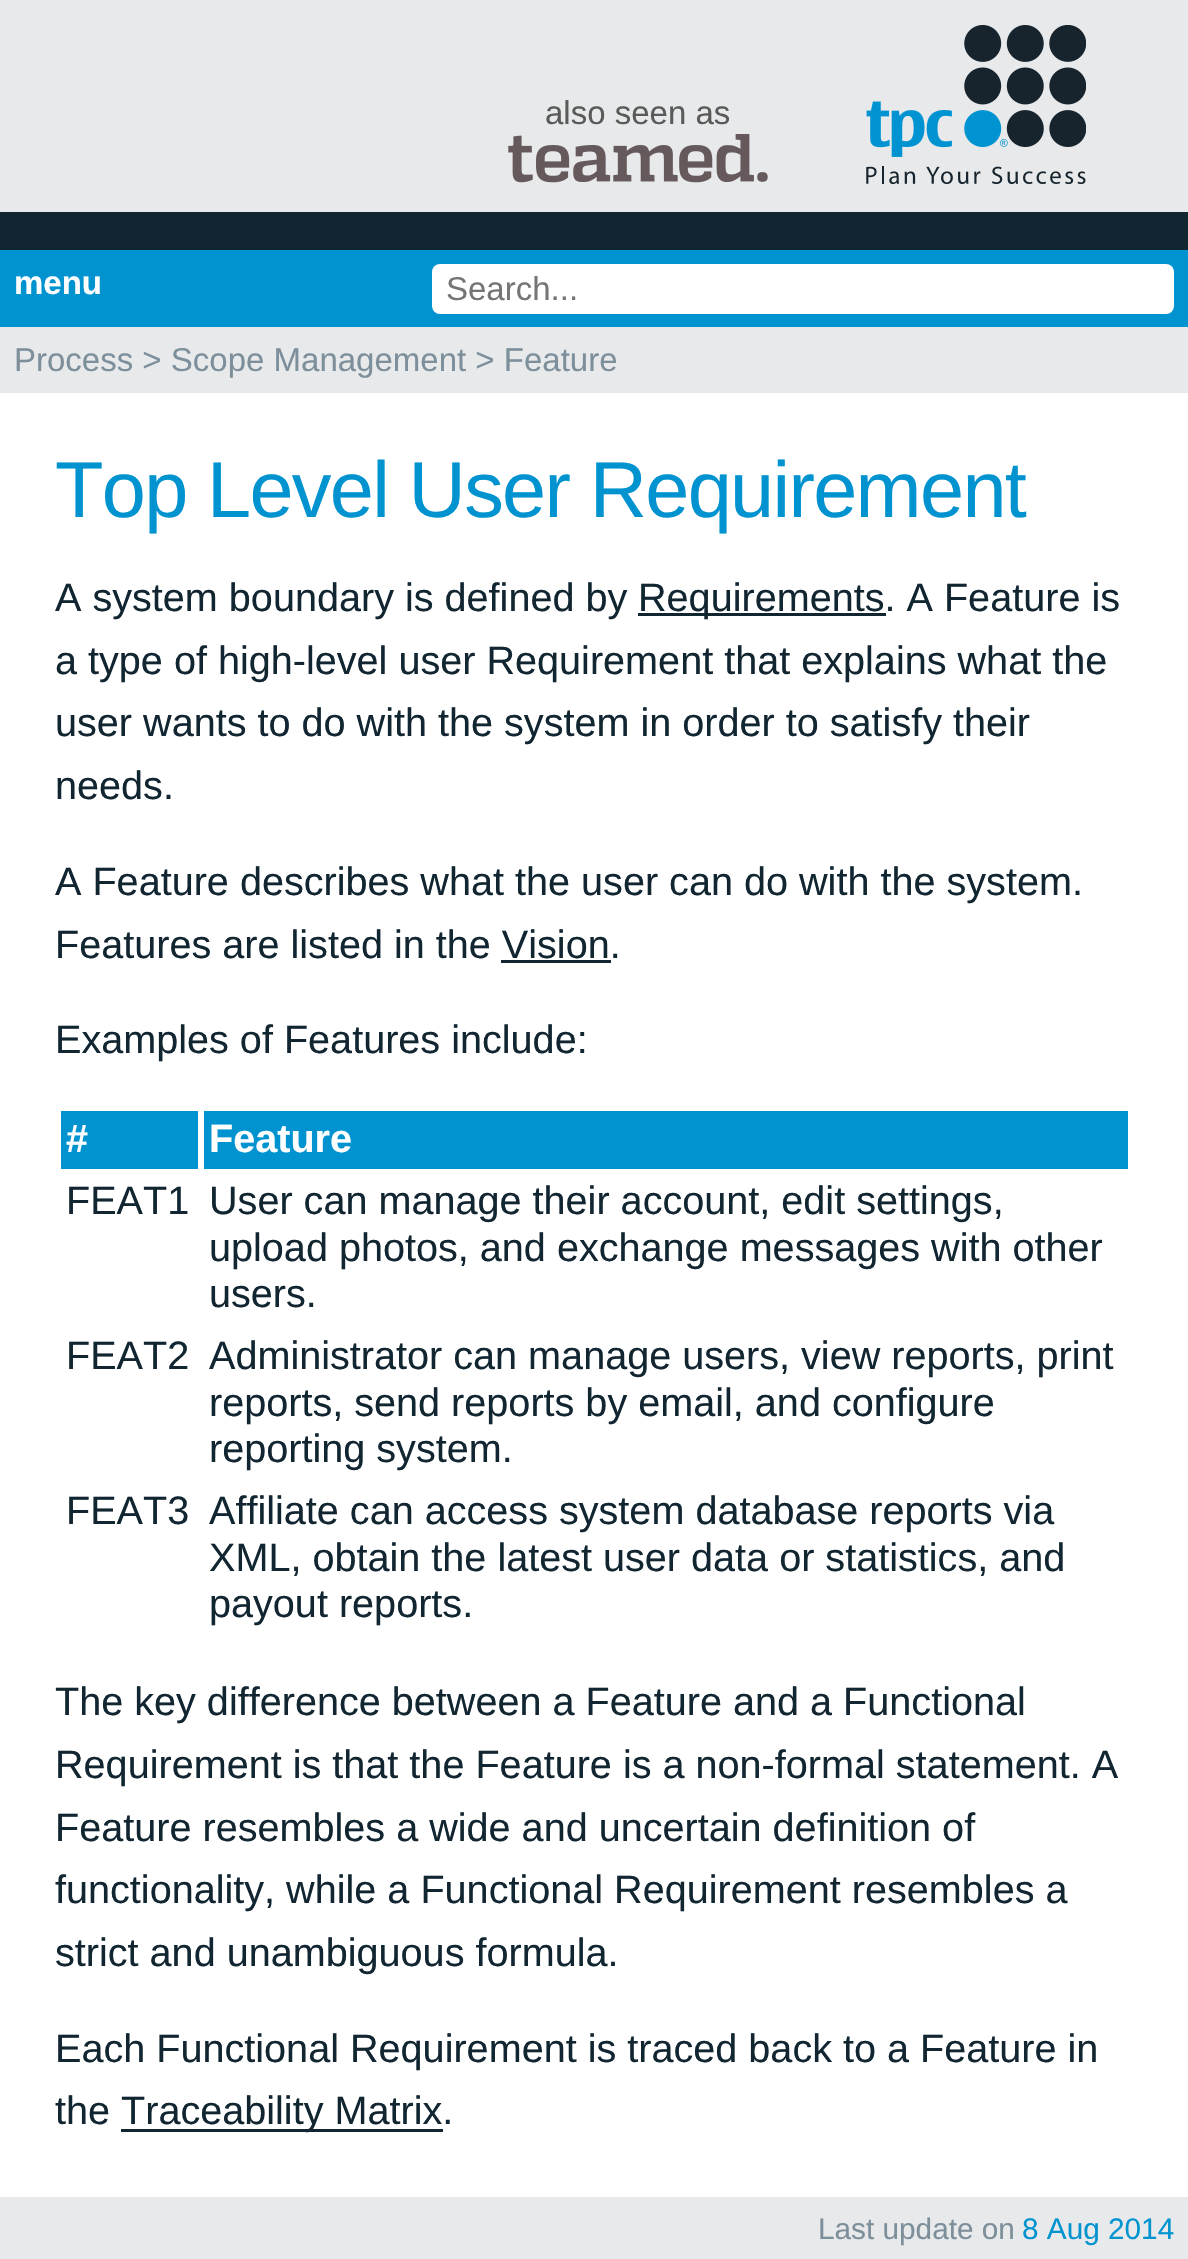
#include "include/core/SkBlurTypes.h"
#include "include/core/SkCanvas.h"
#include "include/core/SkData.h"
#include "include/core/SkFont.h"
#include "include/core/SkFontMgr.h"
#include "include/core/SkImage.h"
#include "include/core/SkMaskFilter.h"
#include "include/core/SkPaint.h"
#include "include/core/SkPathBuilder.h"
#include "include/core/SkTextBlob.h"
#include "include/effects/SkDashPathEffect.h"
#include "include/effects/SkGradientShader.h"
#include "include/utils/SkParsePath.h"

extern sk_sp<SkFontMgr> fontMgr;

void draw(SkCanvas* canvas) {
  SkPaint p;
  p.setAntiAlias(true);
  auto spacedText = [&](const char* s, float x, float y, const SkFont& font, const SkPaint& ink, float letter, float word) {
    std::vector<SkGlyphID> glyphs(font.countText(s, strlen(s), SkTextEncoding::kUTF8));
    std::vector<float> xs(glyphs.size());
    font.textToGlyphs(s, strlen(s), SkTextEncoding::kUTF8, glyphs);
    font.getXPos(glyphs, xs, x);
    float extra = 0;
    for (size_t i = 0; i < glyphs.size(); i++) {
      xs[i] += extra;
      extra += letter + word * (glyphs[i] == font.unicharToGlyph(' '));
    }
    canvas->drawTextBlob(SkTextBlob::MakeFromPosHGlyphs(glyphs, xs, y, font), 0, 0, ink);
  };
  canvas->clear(SkColorSetRGB(231, 233, 234));
  canvas->drawImageRect(SkImages::DeferredFromEncodedData(SkData::MakeFromFileName("images/1.png")), SkRect::MakeLTRB(508, 134, 768, 183), SkSamplingOptions());
  canvas->drawImageRect(SkImages::DeferredFromEncodedData(SkData::MakeFromFileName("images/2.png")), SkRect::MakeLTRB(866, 25, 1086, 184), SkSamplingOptions());
  p.setColor(SkColorSetRGB(18, 38, 50));
  canvas->drawRect(SkRect::MakeLTRB(0, 212, 1188, 250), p);
  p.setColor(SkColorSetRGB(0, 147, 208));
  canvas->drawRect(SkRect::MakeLTRB(0, 250, 1188, 327), p);
  p.setColor(SK_ColorWHITE);
  canvas->drawRoundRect(SkRect::MakeLTRB(432, 264, 1174, 314), 8, 8, p);
  canvas->drawRect(SkRect::MakeLTRB(0, 393, 1188, 2197), p);
  p.setColor(SkColorSetRGB(18, 38, 50));
  canvas->drawRect(SkRect::MakeLTRB(638, 613, 886, 616), p);
  canvas->drawRect(SkRect::MakeLTRB(501, 960, 611, 963), p);
  p.setColor(SkColorSetRGB(0, 147, 208));
  canvas->drawRect(SkRect::MakeLTRB(61, 1111, 198, 1169), p);
  canvas->drawRect(SkRect::MakeLTRB(204, 1111, 1128, 1169), p);
  p.setColor(SkColorSetRGB(18, 38, 50));
  canvas->drawRect(SkRect::MakeLTRB(121, 2129, 443, 2132), p);
  SkFont font1(fontMgr->matchFamilyStyle("Liberation Sans", SkFontStyle::Normal()), 33);
  font1.setSubpixel(true);
  p.setColor(SkColorSetRGB(90, 90, 90));
  canvas->drawString("also seen as", 545, 124, font1, p);
  SkFont font2(fontMgr->matchFamilyStyle("Liberation Sans", SkFontStyle::Bold()), 33);
  font2.setSubpixel(true);
  p.setColor(SK_ColorWHITE);
  canvas->drawString("menu", 14, 294, font2, p);
  p.setColor(SkColorSetRGB(117, 117, 117));
  canvas->drawString("Search...", 446, 300, font1, p);
  p.setColor(SkColorSetRGB(125, 143, 155));
  canvas->drawString("Process > Scope Management > Feature", 14, 371, font1, p);
  SkFont font3(fontMgr->matchFamilyStyle("Liberation Sans", SkFontStyle::Normal()), 79.25f);
  font3.setSubpixel(true);
  p.setColor(SkColorSetRGB(0, 147, 208));
  spacedText("Top Level User Requirement", 55, 517, font3, p, -1.65f, 0);
  SkFont font4(fontMgr->matchFamilyStyle("Liberation Sans", SkFontStyle::Normal()), 39.6f);
  font4.setSubpixel(true);
  p.setColor(SkColorSetRGB(18, 38, 50));
  canvas->drawString("A system boundary is defined by", 55, 611, font4, p);
  canvas->drawString("Requirements. A Feature is", 638, 611, font4, p);
  canvas->drawString("a type of high-level user Requirement that explains what the", 55, 674, font4, p);
  canvas->drawString("user wants to do with the system in order to satisfy their", 55, 736, font4, p);
  canvas->drawString("needs.", 55, 799, font4, p);
  canvas->drawString("A Feature describes what the user can do with the system.", 55, 895, font4, p);
  canvas->drawString("Features are listed in the Vision.", 55, 958, font4, p);
  canvas->drawString("Examples of Features include:", 55, 1053, font4, p);
  SkFont font5(fontMgr->matchFamilyStyle("Liberation Sans", SkFontStyle::Bold()), 39.6f);
  font5.setSubpixel(true);
  p.setColor(SK_ColorWHITE);
  canvas->drawString("#", 66, 1152, font5, p);
  canvas->drawString("Feature", 209, 1152, font5, p);
  p.setColor(SkColorSetRGB(18, 38, 50));
  canvas->drawString("FEAT1", 66, 1214, font4, p);
  canvas->drawString("User can manage their account, edit settings,", 209, 1214, font4, p);
  canvas->drawString("upload photos, and exchange messages with other", 209, 1261, font4, p);
  canvas->drawString("users.", 209, 1307, font4, p);
  canvas->drawString("FEAT2", 66, 1369, font4, p);
  canvas->drawString("Administrator can manage users, view reports, print", 209, 1369, font4, p);
  canvas->drawString("reports, send reports by email, and configure", 209, 1416, font4, p);
  canvas->drawString("reporting system.", 209, 1462, font4, p);
  canvas->drawString("FEAT3", 66, 1524, font4, p);
  canvas->drawString("Affiliate can access system database reports via", 209, 1524, font4, p);
  canvas->drawString("XML, obtain the latest user data or statistics, and", 209, 1571, font4, p);
  canvas->drawString("payout reports.", 209, 1617, font4, p);
  canvas->drawString("The key difference between a Feature and a Functional", 55, 1715, font4, p);
  canvas->drawString("Requirement is that the Feature is a non-formal statement. A", 55, 1778, font4, p);
  canvas->drawString("Feature resembles a wide and uncertain definition of", 55, 1841, font4, p);
  canvas->drawString("functionality, while a Functional Requirement resembles a", 55, 1903, font4, p);
  canvas->drawString("strict and unambiguous formula.", 55, 1966, font4, p);
  canvas->drawString("Each Functional Requirement is traced back to a Feature in", 55, 2062, font4, p);
  canvas->drawString("the", 55, 2124, font4, p);
  canvas->drawString("Traceability Matrix.", 121, 2124, font4, p);
  SkFont font6(fontMgr->matchFamilyStyle("Liberation Sans", SkFontStyle::Normal()), 29.75f);
  font6.setSubpixel(true);
  p.setColor(SkColorSetRGB(125, 143, 155));
  canvas->drawString("Last update on", 818, 2239, font6, p);
  p.setColor(SkColorSetRGB(0, 147, 208));
  canvas->drawString("8 Aug 2014", 1022, 2239, font6, p);
}
